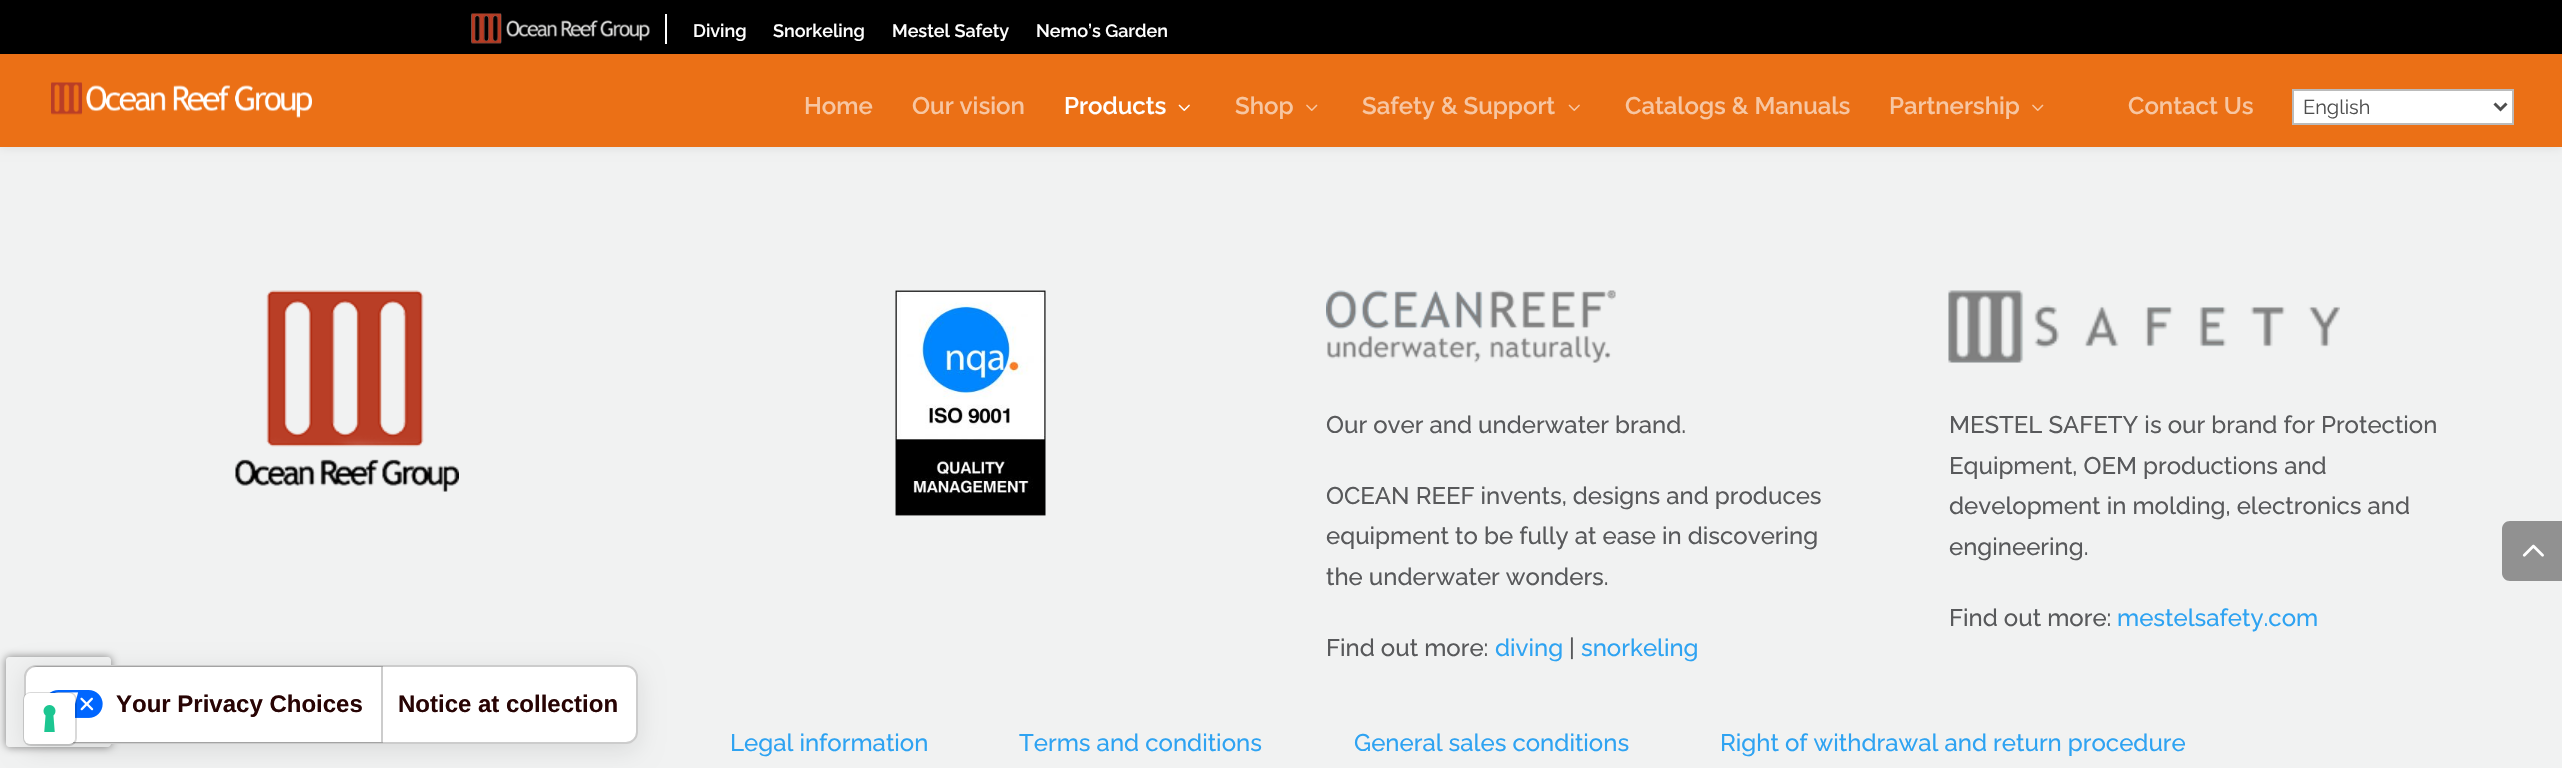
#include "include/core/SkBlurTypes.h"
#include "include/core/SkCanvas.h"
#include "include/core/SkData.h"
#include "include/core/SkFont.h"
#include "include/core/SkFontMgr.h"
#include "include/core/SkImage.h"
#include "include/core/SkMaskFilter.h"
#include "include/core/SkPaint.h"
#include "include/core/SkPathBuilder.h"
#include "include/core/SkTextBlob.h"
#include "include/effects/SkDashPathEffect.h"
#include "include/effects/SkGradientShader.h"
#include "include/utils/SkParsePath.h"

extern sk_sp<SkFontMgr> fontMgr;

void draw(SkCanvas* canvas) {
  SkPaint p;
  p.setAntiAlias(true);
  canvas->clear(SkColorSetRGB(241, 242, 242));
  p.setColor(SkColorSetARGB(26, 0, 0, 0));
  p.setMaskFilter(SkMaskFilter::MakeBlur(kNormal_SkBlurStyle, 5));
  canvas->drawRect(SkRect::MakeLTRB(0, 54, 2562, 147), p);
  p.setMaskFilter(nullptr);
  p.setColor(SK_ColorBLACK);
  canvas->drawRect(SkRect::MakeLTRB(0, 0, 2562, 54), p);
  canvas->drawImageRect(SkImages::DeferredFromEncodedData(SkData::MakeFromFileName("images/1.png")), SkRect::MakeLTRB(471, 13, 650, 44), SkSamplingOptions());
  p.setColor(SK_ColorWHITE);
  canvas->drawRect(SkRect::MakeLTRB(665, 14, 667, 44), p);
  p.setColor(SkColorSetRGB(235, 112, 22));
  canvas->drawRect(SkRect::MakeLTRB(0, 54, 2562, 147), p);
  canvas->drawImageRect(SkImages::DeferredFromEncodedData(SkData::MakeFromFileName("images/2.png")), SkRect::MakeLTRB(51, 82, 312, 118), SkSamplingOptions());
  canvas->drawImageRect(SkImages::DeferredFromEncodedData(SkData::MakeFromFileName("images/3.png")), SkRect::MakeLTRB(1178, 104, 1190, 111), SkSamplingOptions());
  canvas->drawImageRect(SkImages::DeferredFromEncodedData(SkData::MakeFromFileName("images/4.png")), SkRect::MakeLTRB(1306, 104, 1318, 111), SkSamplingOptions());
  canvas->drawImageRect(SkImages::DeferredFromEncodedData(SkData::MakeFromFileName("images/5.png")), SkRect::MakeLTRB(1568, 104, 1580, 111), SkSamplingOptions());
  canvas->drawImageRect(SkImages::DeferredFromEncodedData(SkData::MakeFromFileName("images/4.png")), SkRect::MakeLTRB(2032, 104, 2044, 111), SkSamplingOptions());
  p.setColor(SK_ColorWHITE);
  canvas->drawRect(SkRect::MakeLTRB(2293, 90, 2513, 124), p);
  p.setStyle(SkPaint::kStroke_Style);
  p.setStrokeWidth(2);
  p.setColor(SkColorSetRGB(187, 187, 187));
  canvas->drawRect(SkRect::MakeLTRB(2293, 90, 2513, 124), p);
  p.setStrokeWidth(3);
  p.setColor(SkColorSetRGB(78, 78, 78));
  canvas->drawPath(SkPathBuilder().moveTo(2494.5f, 103.5f).lineTo(2500.5f, 109.5f).lineTo(2506.5f, 103.5f).detach(), p);
  p.setStyle(SkPaint::kFill_Style);
  p.setColor(SkColorSetRGB(145, 145, 145));
  canvas->drawPath(SkPathBuilder().moveTo(2510, 521).lineTo(2562, 521).lineTo(2562, 581).lineTo(2510, 581).cubicTo(2505.5f, 581, 2502, 577.5f, 2502, 573).lineTo(2502, 529).cubicTo(2502, 524.5f, 2505.5f, 521, 2510, 521).close().detach(), p);
  canvas->drawImageRect(SkImages::DeferredFromEncodedData(SkData::MakeFromFileName("images/6.png")), SkRect::MakeLTRB(2522, 544, 2544, 557), SkSamplingOptions());
  canvas->save();
  canvas->clipPath(SkPathBuilder(SkPathFillType::kEvenOdd).moveTo(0, 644).lineTo(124, 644).lineTo(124, 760).lineTo(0, 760).close().moveTo(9, 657).lineTo(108, 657).cubicTo(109.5f, 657, 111, 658.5f, 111, 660).lineTo(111, 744).cubicTo(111, 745.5f, 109.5f, 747, 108, 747).lineTo(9, 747).cubicTo(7.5f, 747, 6, 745.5f, 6, 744).lineTo(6, 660).cubicTo(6, 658.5f, 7.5f, 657, 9, 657).close().detach(), true);
  p.setColor(SkColorSetRGB(128, 128, 128));
  p.setMaskFilter(SkMaskFilter::MakeBlur(kNormal_SkBlurStyle, 4));
  canvas->drawRoundRect(SkRect::MakeLTRB(6, 657, 111, 747), 3, 3, p);
  p.setMaskFilter(nullptr);
  canvas->restore();
  canvas->drawImageRect(SkImages::DeferredFromEncodedData(SkData::MakeFromFileName("images/7.png")), SkRect::MakeLTRB(235, 290, 459, 492), SkSamplingOptions());
  canvas->drawImageRect(SkImages::DeferredFromEncodedData(SkData::MakeFromFileName("images/8.png")), SkRect::MakeLTRB(895, 290, 1046, 516), SkSamplingOptions());
  canvas->drawImageRect(SkImages::DeferredFromEncodedData(SkData::MakeFromFileName("images/9.png")), SkRect::MakeLTRB(1326, 290, 1616, 363), SkSamplingOptions());
  canvas->drawImageRect(SkImages::DeferredFromEncodedData(SkData::MakeFromFileName("images/10.png")), SkRect::MakeLTRB(1948, 290, 2340, 363), SkSamplingOptions());
  p.setColor(SkColorSetARGB(26, 0, 0, 0));
  p.setMaskFilter(SkMaskFilter::MakeBlur(kNormal_SkBlurStyle, 12));
  canvas->drawRoundRect(SkRect::MakeLTRB(24, 671, 638, 750), 12, 12, p);
  p.setMaskFilter(nullptr);
  p.setColor(SK_ColorWHITE);
  canvas->drawRoundRect(SkRect::MakeLTRB(24, 665, 638, 744), 12, 12, p);
  p.setStyle(SkPaint::kStroke_Style);
  p.setStrokeWidth(2);
  p.setColor(SkColorSetARGB(51, 0, 0, 0));
  canvas->drawRoundRect(SkRect::MakeLTRB(25, 666, 637, 743), 11, 11, p);
  p.setStyle(SkPaint::kFill_Style);
  canvas->drawPath(SkPathBuilder().moveTo(37, 666).lineTo(383, 666).lineTo(383, 743).lineTo(37, 743).lineTo(32, 742).lineTo(381, 742).lineTo(381, 667).lineTo(32, 667).close().detach(), p);
  canvas->drawImageRect(SkImages::DeferredFromEncodedData(SkData::MakeFromFileName("images/12.png")), SkRect::MakeLTRB(49, 690, 103, 718), SkSamplingOptions());
  p.setStyle(SkPaint::kStroke_Style);
  p.setColor(SkColorSetARGB(38, 0, 0, 0));
  canvas->drawRoundRect(SkRect::MakeLTRB(24, 693, 76, 745), 7, 7, p);
  p.setStyle(SkPaint::kFill_Style);
  p.setColor(SK_ColorWHITE);
  canvas->drawRoundRect(SkRect::MakeLTRB(24, 693, 75, 744), 6, 6, p);
  canvas->drawImageRect(SkImages::DeferredFromEncodedData(SkData::MakeFromFileName("images/11.png")), SkRect::MakeLTRB(43, 705, 56, 732), SkSamplingOptions());
  SkFont font1(fontMgr->matchFamilyStyle("Raleway", SkFontStyle(600, SkFontStyle::kNormal_Width, SkFontStyle::kUpright_Slant)), 18);
  font1.setSubpixel(true);
  canvas->drawString("Diving", 693, 37, font1, p);
  canvas->drawString("Snorkeling", 773, 37, font1, p);
  canvas->drawString("Mestel Safety", 892, 37, font1, p);
  canvas->drawString("Nemo’s Garden", 1036, 37, font1, p);
  SkFont font2(fontMgr->matchFamilyStyle("Raleway", SkFontStyle(600, SkFontStyle::kNormal_Width, SkFontStyle::kUpright_Slant)), 24);
  font2.setSubpixel(true);
  p.setColor(SkColorSetRGB(247, 198, 162));
  canvas->drawString("Home", 804, 114, font2, p);
  canvas->drawString("Our vision", 912, 114, font2, p);
  p.setColor(SK_ColorWHITE);
  canvas->drawString("Products", 1064, 114, font2, p);
  p.setColor(SkColorSetRGB(247, 198, 162));
  canvas->drawString("Shop", 1235, 114, font2, p);
  canvas->drawString("Safety & Support", 1362, 114, font2, p);
  canvas->drawString("Catalogs & Manuals", 1625, 114, font2, p);
  canvas->drawString("Partnership", 1889, 114, font2, p);
  canvas->drawString("Contact Us", 2128, 114, font2, p);
  SkFont font3(fontMgr->matchFamilyStyle("Raleway", SkFontStyle::Normal()), 20);
  font3.setSubpixel(true);
  p.setColor(SkColorSetRGB(78, 78, 78));
  canvas->drawString("English", 2303, 114, font3, p);
  SkFont font4(fontMgr->matchFamilyStyle("Raleway", SkFontStyle(500, SkFontStyle::kNormal_Width, SkFontStyle::kUpright_Slant)), 24);
  font4.setSubpixel(true);
  p.setColor(SkColorSetRGB(88, 89, 91));
  canvas->drawString("Our over and underwater brand.", 1326, 433, font4, p);
  canvas->drawString("OCEAN REEF invents, designs and produces", 1326, 504, font4, p);
  canvas->drawString("equipment to be fully at ease in discovering", 1326, 544, font4, p);
  canvas->drawString("the underwater wonders.", 1326, 585, font4, p);
  canvas->drawString("Find out more:", 1326, 656, font4, p);
  p.setColor(SkColorSetRGB(46, 163, 242));
  canvas->drawString("diving", 1495, 656, font4, p);
  p.setColor(SkColorSetRGB(88, 89, 91));
  canvas->drawString("|", 1569, 656, font4, p);
  p.setColor(SkColorSetRGB(46, 163, 242));
  canvas->drawString("snorkeling", 1581, 656, font4, p);
  p.setColor(SkColorSetRGB(88, 89, 91));
  canvas->drawString("MESTEL SAFETY is our brand for Protection", 1949, 433, font4, p);
  canvas->drawString("Equipment, OEM productions and", 1949, 474, font4, p);
  canvas->drawString("development in molding, electronics and", 1949, 514, font4, p);
  canvas->drawString("engineering.", 1949, 555, font4, p);
  canvas->drawString("Find out more:", 1949, 626, font4, p);
  p.setColor(SkColorSetRGB(46, 163, 242));
  canvas->drawString("mestelsafety.com", 2117, 626, font4, p);
  canvas->drawString("Legal information", 730, 751, font4, p);
  canvas->drawString("Terms and conditions", 1019, 751, font4, p);
  canvas->drawString("General sales conditions", 1354, 751, font4, p);
  canvas->drawString("Right of withdrawal and return procedure", 1720, 751, font4, p);
  SkFont font5(fontMgr->matchFamilyStyle("Liberation Sans", SkFontStyle::Bold()), 24);
  font5.setSubpixel(true);
  p.setColor(SkColorSetRGB(40, 4, 4));
  canvas->drawString("Your Privacy Choices", 116, 712, font5, p);
  canvas->drawString("Notice at collection", 398, 712, font5, p);
}
